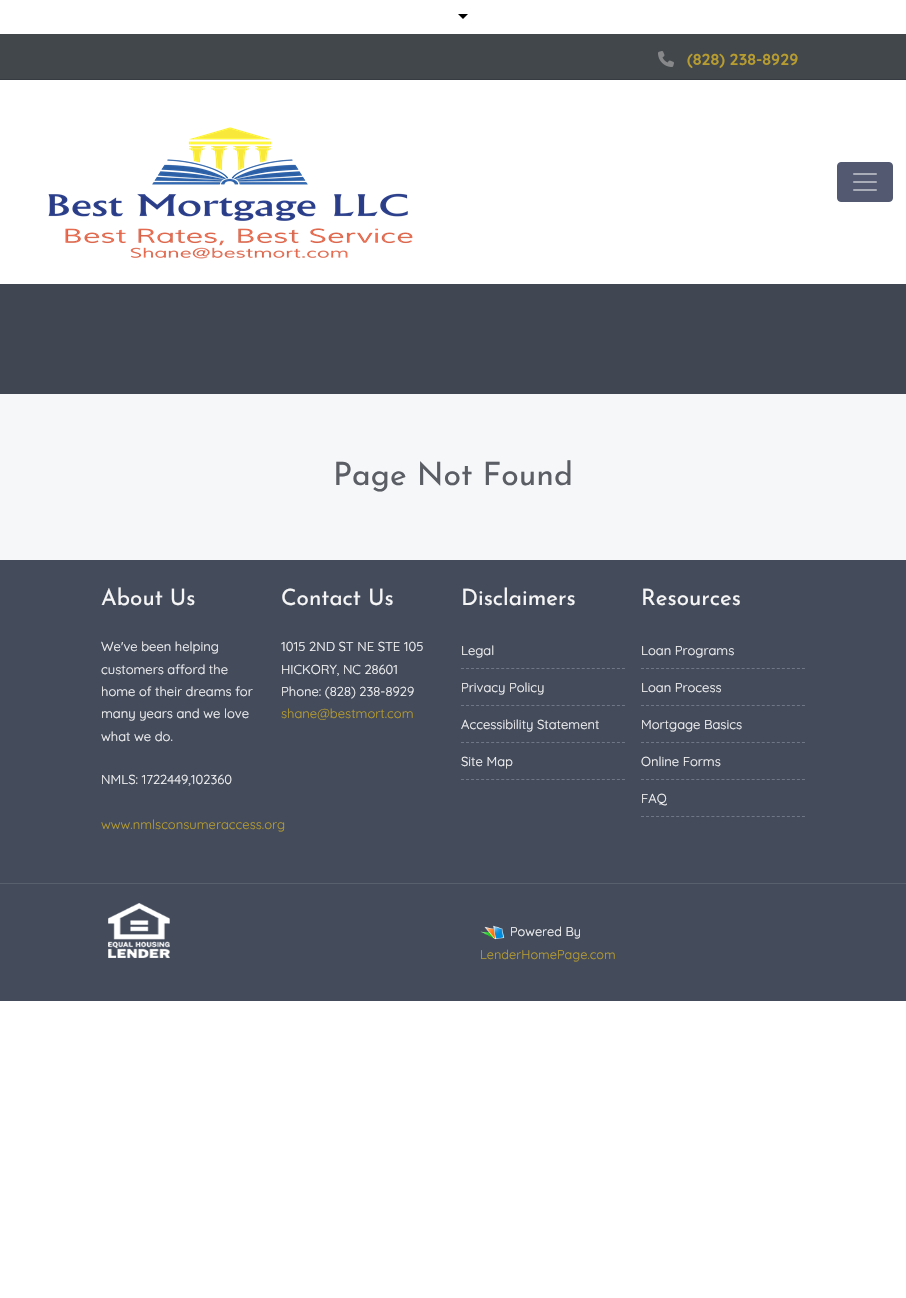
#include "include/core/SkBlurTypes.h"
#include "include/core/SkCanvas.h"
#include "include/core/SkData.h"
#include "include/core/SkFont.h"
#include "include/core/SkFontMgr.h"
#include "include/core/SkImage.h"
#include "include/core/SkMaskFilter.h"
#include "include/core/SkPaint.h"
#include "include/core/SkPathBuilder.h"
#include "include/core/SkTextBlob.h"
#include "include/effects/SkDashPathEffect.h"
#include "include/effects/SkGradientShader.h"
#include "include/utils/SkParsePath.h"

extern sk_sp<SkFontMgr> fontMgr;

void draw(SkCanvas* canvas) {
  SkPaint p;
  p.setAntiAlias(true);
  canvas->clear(SK_ColorWHITE);
  p.setColor(SK_ColorBLACK);
  canvas->drawPath(SkPathBuilder().moveTo(458, 14).lineTo(468, 14).lineTo(463, 19).close().detach(), p);
  p.setColor(SkColorSetRGB(66, 71, 76));
  canvas->drawRect(SkRect::MakeLTRB(0, 34, 906, 79), p);
  p.setColor(SkColorSetRGB(54, 59, 65));
  canvas->drawRect(SkRect::MakeLTRB(0, 79, 906, 80), p);
  canvas->drawImageRect(SkImages::DeferredFromEncodedData(SkData::MakeFromFileName("images/1.png")), SkRect::MakeLTRB(658, 51, 674, 67), SkSamplingOptions());
  canvas->drawImageRect(SkImages::DeferredFromEncodedData(SkData::MakeFromFileName("images/2.png")), SkRect::MakeLTRB(48, 127, 413, 259), SkSamplingOptions());
  p.setColor(SkColorSetRGB(82, 89, 112));
  canvas->drawRoundRect(SkRect::MakeLTRB(837.5f, 162.5f, 892.5f, 201.5f), 3.5f, 3.5f, p);
  p.setStyle(SkPaint::kStroke_Style);
  p.setStrokeWidth(1);
  canvas->drawRoundRect(SkRect::MakeLTRB(837.5f, 162.5f, 892.5f, 201.5f), 3.5f, 3.5f, p);
  canvas->drawImageRect(SkImages::DeferredFromEncodedData(SkData::MakeFromFileName("images/3.png")), SkRect::MakeLTRB(853, 173, 877, 191), SkSamplingOptions());
  p.setStyle(SkPaint::kFill_Style);
  p.setColor(SkColorSetRGB(64, 71, 82));
  canvas->drawRect(SkRect::MakeLTRB(0, 284, 906, 394), p);
  p.setColor(SkColorSetRGB(245, 247, 248));
  canvas->drawRect(SkRect::MakeLTRB(0, 394, 906, 560), p);
  p.setColor(SkColorSetRGB(68, 76, 92));
  canvas->drawRect(SkRect::MakeLTRB(0, 560, 906, 1001), p);
  p.setStyle(SkPaint::kStroke_Style);
  p.setColor(SkColorSetRGB(111, 118, 133));
  p.setPathEffect(SkDashPathEffect::Make({{3, 2.03f}}, 0));
  canvas->drawPath(SkPathBuilder().moveTo(461, 668.5f).lineTo(625, 668.5f).detach(), p);
  p.setPathEffect(nullptr);
  p.setPathEffect(SkDashPathEffect::Make({{3, 2.03f}}, 0));
  canvas->drawPath(SkPathBuilder().moveTo(461, 705.5f).lineTo(625, 705.5f).detach(), p);
  p.setPathEffect(nullptr);
  p.setPathEffect(SkDashPathEffect::Make({{3, 2.03f}}, 0));
  canvas->drawPath(SkPathBuilder().moveTo(461, 742.5f).lineTo(625, 742.5f).detach(), p);
  p.setPathEffect(nullptr);
  p.setPathEffect(SkDashPathEffect::Make({{3, 2.03f}}, 0));
  canvas->drawPath(SkPathBuilder().moveTo(461, 779.5f).lineTo(625, 779.5f).detach(), p);
  p.setPathEffect(nullptr);
  p.setPathEffect(SkDashPathEffect::Make({{3, 2.03f}}, 0));
  canvas->drawPath(SkPathBuilder().moveTo(641, 668.5f).lineTo(805, 668.5f).detach(), p);
  p.setPathEffect(nullptr);
  p.setPathEffect(SkDashPathEffect::Make({{3, 2.03f}}, 0));
  canvas->drawPath(SkPathBuilder().moveTo(641, 705.5f).lineTo(805, 705.5f).detach(), p);
  p.setPathEffect(nullptr);
  p.setPathEffect(SkDashPathEffect::Make({{3, 2.03f}}, 0));
  canvas->drawPath(SkPathBuilder().moveTo(641, 742.5f).lineTo(805, 742.5f).detach(), p);
  p.setPathEffect(nullptr);
  p.setPathEffect(SkDashPathEffect::Make({{3, 2.03f}}, 0));
  canvas->drawPath(SkPathBuilder().moveTo(641, 779.5f).lineTo(805, 779.5f).detach(), p);
  p.setPathEffect(nullptr);
  p.setPathEffect(SkDashPathEffect::Make({{3, 2.03f}}, 0));
  canvas->drawPath(SkPathBuilder().moveTo(641, 816.5f).lineTo(805, 816.5f).detach(), p);
  p.setPathEffect(nullptr);
  p.setStyle(SkPaint::kFill_Style);
  p.setColor(SkColorSetRGB(88, 95, 109));
  canvas->drawRect(SkRect::MakeLTRB(0, 883, 906, 884), p);
  canvas->drawImageRect(SkImages::DeferredFromEncodedData(SkData::MakeFromFileName("images/4.png")), SkRect::MakeLTRB(108, 903, 170, 958), SkSamplingOptions());
  canvas->drawImageRect(SkImages::DeferredFromEncodedData(SkData::MakeFromFileName("images/5.png")), SkRect::MakeLTRB(480, 925, 505, 940), SkSamplingOptions());
  SkFont font1(fontMgr->matchFamilyStyle("Quicksand", SkFontStyle::Bold()), 16);
  font1.setSubpixel(true);
  p.setColor(SkColorSetRGB(183, 156, 47));
  canvas->drawString("(828) 238-8929", 687, 65, font1, p);
  SkFont font2(fontMgr->matchFamilyStyle("Josefin Sans", SkFontStyle::Normal()), 32);
  font2.setSubpixel(true);
  p.setColor(SkColorSetRGB(92, 94, 102));
  canvas->drawString("Page Not Found", 333, 485, font2, p);
  SkFont font3(fontMgr->matchFamilyStyle("Josefin Sans", SkFontStyle::Normal()), 22.5f);
  font3.setSubpixel(true);
  p.setColor(SkColorSetRGB(246, 245, 246));
  canvas->drawString("About Us", 101, 605, font3, p);
  SkFont font4(fontMgr->matchFamilyStyle("Quicksand", SkFontStyle::Normal()), 13);
  font4.setSubpixel(true);
  canvas->drawString("We've been helping", 101, 651, font4, p);
  canvas->drawString("customers afford the", 101, 674, font4, p);
  canvas->drawString("home of their dreams for", 101, 696, font4, p);
  canvas->drawString("many years and we love", 101, 718, font4, p);
  canvas->drawString("what we do.", 101, 741, font4, p);
  canvas->drawString("NMLS: 1722449,102360", 101, 784, font4, p);
  p.setColor(SkColorSetRGB(183, 156, 47));
  canvas->drawString("www.nmlsconsumeraccess.org", 101, 829, font4, p);
  p.setColor(SkColorSetRGB(246, 245, 246));
  canvas->drawString("Contact Us", 281, 605, font3, p);
  canvas->drawString("1015 2ND ST NE STE 105", 281, 651, font4, p);
  canvas->drawString("HICKORY, NC 28601", 281, 674, font4, p);
  canvas->drawString("Phone: (828) 238-8929", 281, 696, font4, p);
  p.setColor(SkColorSetRGB(183, 156, 47));
  canvas->drawString("shane@bestmort.com", 281, 718, font4, p);
  p.setColor(SkColorSetRGB(246, 245, 246));
  canvas->drawString("Disclaimers", 461, 605, font3, p);
  canvas->drawString("Legal", 461, 655, font4, p);
  canvas->drawString("Privacy Policy", 461, 692, font4, p);
  canvas->drawString("Accessibility Statement", 461, 729, font4, p);
  canvas->drawString("Site Map", 461, 766, font4, p);
  canvas->drawString("Resources", 641, 605, font3, p);
  canvas->drawString("Loan Programs", 641, 655, font4, p);
  canvas->drawString("Loan Process", 641, 692, font4, p);
  canvas->drawString("Mortgage Basics", 641, 729, font4, p);
  canvas->drawString("Online Forms", 641, 766, font4, p);
  canvas->drawString("FAQ", 641, 803, font4, p);
  SkFont font5(fontMgr->matchFamilyStyle("Quicksand", SkFontStyle::Normal()), 12.75f);
  font5.setSubpixel(true);
  canvas->drawString("Powered By", 510, 936, font5, p);
  p.setColor(SkColorSetRGB(183, 156, 47));
  canvas->drawString("LenderHomePage.com", 480, 959, font5, p);
}
